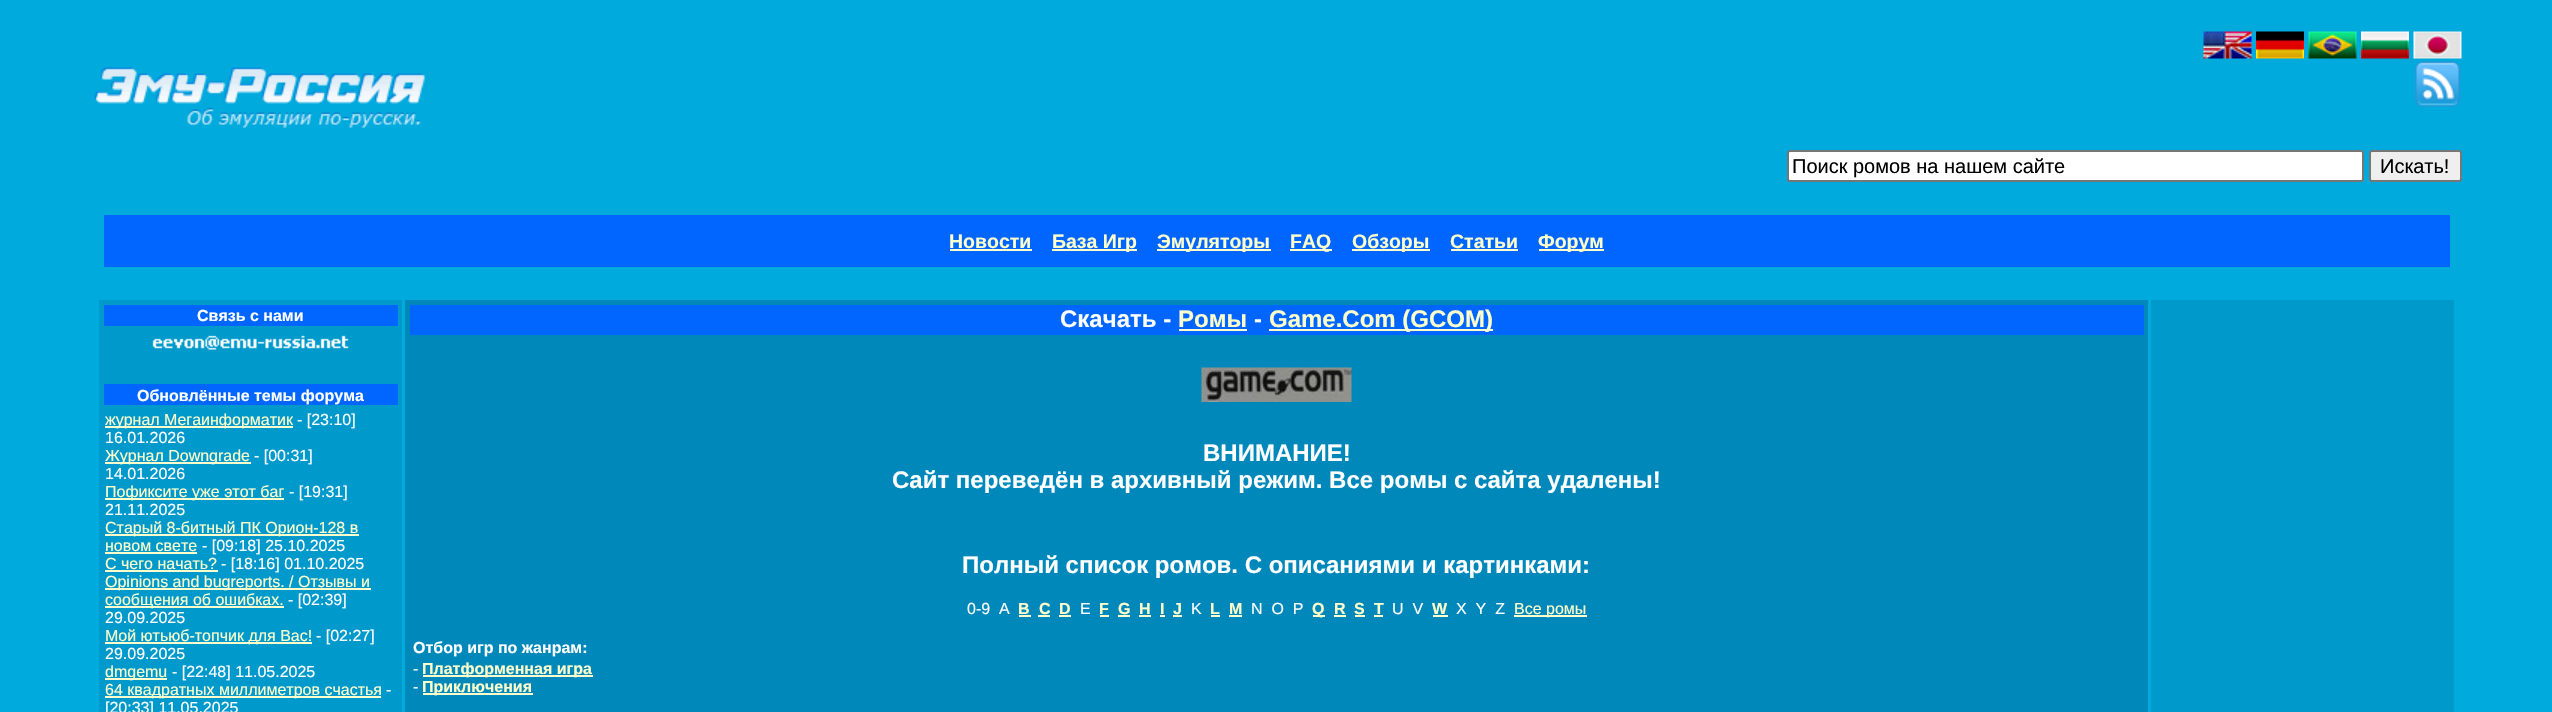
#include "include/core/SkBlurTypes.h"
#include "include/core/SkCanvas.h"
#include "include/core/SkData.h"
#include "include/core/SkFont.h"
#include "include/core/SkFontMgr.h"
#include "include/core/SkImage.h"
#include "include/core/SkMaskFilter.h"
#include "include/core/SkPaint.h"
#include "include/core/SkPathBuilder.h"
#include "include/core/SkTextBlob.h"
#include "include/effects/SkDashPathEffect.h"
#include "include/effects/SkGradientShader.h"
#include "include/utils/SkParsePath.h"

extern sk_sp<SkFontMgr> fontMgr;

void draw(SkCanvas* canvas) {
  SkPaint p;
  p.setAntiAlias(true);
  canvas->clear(SkColorSetRGB(0, 170, 221));
  canvas->drawImageRect(SkImages::DeferredFromEncodedData(SkData::MakeFromFileName("images/1.png")), SkRect::MakeLTRB(2203, 31, 2252, 59), SkSamplingOptions());
  canvas->drawImageRect(SkImages::DeferredFromEncodedData(SkData::MakeFromFileName("images/2.png")), SkRect::MakeLTRB(2256, 31, 2304, 59), SkSamplingOptions());
  canvas->drawImageRect(SkImages::DeferredFromEncodedData(SkData::MakeFromFileName("images/3.png")), SkRect::MakeLTRB(2308, 31, 2357, 59), SkSamplingOptions());
  canvas->drawImageRect(SkImages::DeferredFromEncodedData(SkData::MakeFromFileName("images/4.png")), SkRect::MakeLTRB(2361, 31, 2409, 59), SkSamplingOptions());
  canvas->drawImageRect(SkImages::DeferredFromEncodedData(SkData::MakeFromFileName("images/5.png")), SkRect::MakeLTRB(2413, 31, 2462, 59), SkSamplingOptions());
  canvas->drawImageRect(SkImages::DeferredFromEncodedData(SkData::MakeFromFileName("images/6.png")), SkRect::MakeLTRB(94, 67, 425, 128), SkSamplingOptions());
  canvas->drawImageRect(SkImages::DeferredFromEncodedData(SkData::MakeFromFileName("images/7.png")), SkRect::MakeLTRB(2414, 61, 2461, 107), SkSamplingOptions());
  p.setColor(SK_ColorWHITE);
  canvas->drawRoundRect(SkRect::MakeLTRB(1788, 151, 2363, 181), 2, 2, p);
  p.setStyle(SkPaint::kStroke_Style);
  p.setStrokeWidth(2);
  p.setColor(SkColorSetRGB(118, 118, 118));
  canvas->drawRoundRect(SkRect::MakeLTRB(1788, 151, 2363, 181), 2, 2, p);
  p.setStyle(SkPaint::kFill_Style);
  p.setColor(SkColorSetRGB(239, 239, 239));
  canvas->drawRoundRect(SkRect::MakeLTRB(2370, 151, 2461, 181), 2, 2, p);
  p.setStyle(SkPaint::kStroke_Style);
  p.setColor(SkColorSetRGB(118, 118, 118));
  canvas->drawRoundRect(SkRect::MakeLTRB(2370, 151, 2461, 181), 2, 2, p);
  p.setStyle(SkPaint::kFill_Style);
  p.setColor(SkColorSetRGB(0, 102, 255));
  canvas->drawRect(SkRect::MakeLTRB(104, 215, 2450, 267), p);
  p.setColor(SkColorSetRGB(255, 255, 204));
  canvas->drawRect(SkRect::MakeLTRB(950, 249, 1032, 251), p);
  canvas->drawRect(SkRect::MakeLTRB(1052, 249, 1137, 251), p);
  canvas->drawRect(SkRect::MakeLTRB(1157, 249, 1271, 251), p);
  canvas->drawRect(SkRect::MakeLTRB(1290, 249, 1332, 251), p);
  canvas->drawRect(SkRect::MakeLTRB(1352, 249, 1430, 251), p);
  canvas->drawRect(SkRect::MakeLTRB(1451, 249, 1518, 251), p);
  canvas->drawRect(SkRect::MakeLTRB(1539, 249, 1604, 251), p);
  p.setColor(SkColorSetRGB(0, 153, 204));
  canvas->drawRect(SkRect::MakeLTRB(99, 300, 402, 712), p);
  p.setColor(SkColorSetRGB(0, 102, 255));
  canvas->drawRect(SkRect::MakeLTRB(104, 305, 398, 326), p);
  canvas->drawImageRect(SkImages::DeferredFromEncodedData(SkData::MakeFromFileName("images/8.png")), SkRect::MakeLTRB(152, 335, 349, 350), SkSamplingOptions());
  canvas->drawRect(SkRect::MakeLTRB(104, 384, 398, 405), p);
  p.setColor(SkColorSetRGB(255, 255, 204));
  canvas->drawRect(SkRect::MakeLTRB(105, 426, 293, 428), p);
  canvas->drawRect(SkRect::MakeLTRB(105, 462, 251, 464), p);
  canvas->drawRect(SkRect::MakeLTRB(105, 498, 284, 500), p);
  canvas->drawRect(SkRect::MakeLTRB(105, 534, 359, 536), p);
  canvas->drawRect(SkRect::MakeLTRB(105, 552, 197, 554), p);
  canvas->drawRect(SkRect::MakeLTRB(105, 570, 218, 572), p);
  canvas->drawRect(SkRect::MakeLTRB(105, 588, 371, 590), p);
  canvas->drawRect(SkRect::MakeLTRB(105, 606, 284, 608), p);
  canvas->drawRect(SkRect::MakeLTRB(105, 642, 312, 644), p);
  canvas->drawRect(SkRect::MakeLTRB(105, 678, 167, 680), p);
  canvas->drawRect(SkRect::MakeLTRB(105, 696, 381, 698), p);
  p.setColor(SkColorSetRGB(0, 136, 187));
  canvas->drawRect(SkRect::MakeLTRB(405, 300, 2148, 712), p);
  p.setColor(SkColorSetRGB(0, 102, 255));
  canvas->drawRect(SkRect::MakeLTRB(410, 305, 2144, 335), p);
  p.setColor(SkColorSetRGB(255, 255, 204));
  canvas->drawRect(SkRect::MakeLTRB(1179, 329, 1247, 331), p);
  canvas->drawRect(SkRect::MakeLTRB(1269, 329, 1493, 331), p);
  canvas->drawImageRect(SkImages::DeferredFromEncodedData(SkData::MakeFromFileName("images/9.png")), SkRect::MakeLTRB(1201, 367, 1352, 402), SkSamplingOptions());
  canvas->drawRect(SkRect::MakeLTRB(1019, 615, 1031, 617), p);
  canvas->drawRect(SkRect::MakeLTRB(1038, 615, 1050, 617), p);
  canvas->drawRect(SkRect::MakeLTRB(1059, 615, 1071, 617), p);
  canvas->drawRect(SkRect::MakeLTRB(1100, 615, 1109, 617), p);
  canvas->drawRect(SkRect::MakeLTRB(1118, 615, 1130, 617), p);
  canvas->drawRect(SkRect::MakeLTRB(1139, 615, 1151, 617), p);
  canvas->drawRect(SkRect::MakeLTRB(1160, 615, 1165, 617), p);
  canvas->drawRect(SkRect::MakeLTRB(1173, 615, 1182, 617), p);
  canvas->drawRect(SkRect::MakeLTRB(1211, 615, 1220, 617), p);
  canvas->drawRect(SkRect::MakeLTRB(1229, 615, 1242, 617), p);
  canvas->drawRect(SkRect::MakeLTRB(1313, 615, 1325, 617), p);
  canvas->drawRect(SkRect::MakeLTRB(1334, 615, 1346, 617), p);
  canvas->drawRect(SkRect::MakeLTRB(1355, 615, 1365, 617), p);
  canvas->drawRect(SkRect::MakeLTRB(1374, 615, 1383, 617), p);
  canvas->drawRect(SkRect::MakeLTRB(1433, 615, 1448, 617), p);
  canvas->drawRect(SkRect::MakeLTRB(1514, 615, 1587, 617), p);
  canvas->drawRect(SkRect::MakeLTRB(423, 675, 593, 677), p);
  canvas->drawRect(SkRect::MakeLTRB(423, 693, 533, 695), p);
  p.setColor(SkColorSetRGB(0, 153, 204));
  canvas->drawRect(SkRect::MakeLTRB(2151, 300, 2454, 712), p);
  SkFont font1(fontMgr->matchFamilyStyle("Liberation Sans", SkFontStyle::Normal()), 20);
  font1.setSubpixel(true);
  p.setColor(SK_ColorBLACK);
  canvas->drawString("Поиск ромов на нашем сайте", 1792, 173, font1, p);
  canvas->drawString("Искать!", 2380, 173, font1, p);
  SkFont font2(fontMgr->matchFamilyStyle("Liberation Sans", SkFontStyle::Bold()), 19.5f);
  font2.setSubpixel(true);
  p.setColor(SkColorSetRGB(255, 255, 204));
  canvas->drawString("Новости", 949, 248, font2, p);
  canvas->drawString("База Игр", 1052, 248, font2, p);
  canvas->drawString("Эмуляторы", 1157, 248, font2, p);
  canvas->drawString("FAQ", 1290, 248, font2, p);
  canvas->drawString("Обзоры", 1352, 248, font2, p);
  canvas->drawString("Статьи", 1450, 248, font2, p);
  canvas->drawString("Форум", 1538, 248, font2, p);
  SkFont font3(fontMgr->matchFamilyStyle("Liberation Sans", SkFontStyle::Bold()), 16);
  font3.setSubpixel(true);
  p.setColor(SK_ColorWHITE);
  canvas->drawString("Связь с нами", 197, 321, font3, p);
  canvas->drawString("Обновлённые темы форума", 137, 401, font3, p);
  SkFont font4(fontMgr->matchFamilyStyle("Liberation Sans", SkFontStyle::Normal()), 16);
  font4.setSubpixel(true);
  p.setColor(SkColorSetRGB(255, 255, 204));
  canvas->drawString("журнал Мегаинформатик", 105, 425, font4, p);
  p.setColor(SK_ColorWHITE);
  canvas->drawString("- [23:10]", 297, 425, font4, p);
  canvas->drawString("16.01.2026", 105, 443, font4, p);
  p.setColor(SkColorSetRGB(255, 255, 204));
  canvas->drawString("Журнал Downgrade", 105, 461, font4, p);
  p.setColor(SK_ColorWHITE);
  canvas->drawString("- [00:31]", 254, 461, font4, p);
  canvas->drawString("14.01.2026", 105, 479, font4, p);
  p.setColor(SkColorSetRGB(255, 255, 204));
  canvas->drawString("Пофиксите уже этот баг", 105, 497, font4, p);
  p.setColor(SK_ColorWHITE);
  canvas->drawString("- [19:31]", 289, 497, font4, p);
  canvas->drawString("21.11.2025", 105, 515, font4, p);
  p.setColor(SkColorSetRGB(255, 255, 204));
  canvas->drawString("Старый 8-битный ПК Орион-128 в", 105, 533, font4, p);
  canvas->drawString("новом свете", 105, 551, font4, p);
  p.setColor(SK_ColorWHITE);
  canvas->drawString("- [09:18] 25.10.2025", 202, 551, font4, p);
  p.setColor(SkColorSetRGB(255, 255, 204));
  canvas->drawString("C чего начать?", 105, 569, font4, p);
  p.setColor(SK_ColorWHITE);
  canvas->drawString("- [18:16] 01.10.2025", 221, 569, font4, p);
  p.setColor(SkColorSetRGB(255, 255, 204));
  canvas->drawString("Opinions and bugreports. / Отзывы и", 105, 587, font4, p);
  canvas->drawString("сообщения об ошибках.", 105, 605, font4, p);
  p.setColor(SK_ColorWHITE);
  canvas->drawString("- [02:39]", 288, 605, font4, p);
  canvas->drawString("29.09.2025", 105, 623, font4, p);
  p.setColor(SkColorSetRGB(255, 255, 204));
  canvas->drawString("Мой ютьюб-топчик для Вас!", 105, 641, font4, p);
  p.setColor(SK_ColorWHITE);
  canvas->drawString("- [02:27]", 316, 641, font4, p);
  canvas->drawString("29.09.2025", 105, 659, font4, p);
  p.setColor(SkColorSetRGB(255, 255, 204));
  canvas->drawString("dmgemu", 105, 677, font4, p);
  p.setColor(SK_ColorWHITE);
  canvas->drawString("- [22:48] 11.05.2025", 172, 677, font4, p);
  p.setColor(SkColorSetRGB(255, 255, 204));
  canvas->drawString("64 квадратных миллиметров счастья", 105, 695, font4, p);
  p.setColor(SK_ColorWHITE);
  canvas->drawString("-", 386, 695, font4, p);
  canvas->drawString("[20:33] 11.05.2025", 105, 713, font4, p);
  SkFont font5(fontMgr->matchFamilyStyle("Liberation Sans", SkFontStyle::Bold()), 24);
  font5.setSubpixel(true);
  canvas->drawString("Скачать -", 1060, 327, font5, p);
  p.setColor(SkColorSetRGB(255, 255, 204));
  canvas->drawString("Ромы", 1178, 327, font5, p);
  p.setColor(SK_ColorWHITE);
  canvas->drawString("-", 1254, 327, font5, p);
  p.setColor(SkColorSetRGB(255, 255, 204));
  canvas->drawString("Game.Com (GCOM)", 1269, 327, font5, p);
  p.setColor(SK_ColorWHITE);
  canvas->drawString("ВНИМАНИЕ!", 1203, 461, font5, p);
  canvas->drawString("Сайт переведён в архивный режим. Все ромы с сайта удалены!", 892, 488, font5, p);
  canvas->drawString("Полный список ромов. С описаниями и картинками:", 962, 573, font5, p);
  canvas->drawString("0-9  A", 967, 614, font4, p);
  p.setColor(SkColorSetRGB(255, 255, 204));
  canvas->drawString("B", 1018, 614, font3, p);
  canvas->drawString("C", 1039, 614, font3, p);
  canvas->drawString("D", 1059, 614, font3, p);
  p.setColor(SK_ColorWHITE);
  canvas->drawString("E", 1080, 614, font4, p);
  p.setColor(SkColorSetRGB(255, 255, 204));
  canvas->drawString("F", 1099, 614, font3, p);
  canvas->drawString("G", 1118, 614, font3, p);
  canvas->drawString("H", 1139, 614, font3, p);
  canvas->drawString("I", 1160, 614, font3, p);
  canvas->drawString("J", 1173, 614, font3, p);
  p.setColor(SK_ColorWHITE);
  canvas->drawString("K", 1191, 614, font4, p);
  p.setColor(SkColorSetRGB(255, 255, 204));
  canvas->drawString("L", 1210, 614, font3, p);
  canvas->drawString("M", 1229, 614, font3, p);
  p.setColor(SK_ColorWHITE);
  canvas->drawString("N  O  P", 1251, 614, font4, p);
  p.setColor(SkColorSetRGB(255, 255, 204));
  canvas->drawString("Q", 1312, 614, font3, p);
  canvas->drawString("R", 1334, 614, font3, p);
  canvas->drawString("S", 1354, 614, font3, p);
  canvas->drawString("T", 1374, 614, font3, p);
  p.setColor(SK_ColorWHITE);
  canvas->drawString("U  V", 1392, 614, font4, p);
  p.setColor(SkColorSetRGB(255, 255, 204));
  canvas->drawString("W", 1432, 614, font3, p);
  p.setColor(SK_ColorWHITE);
  canvas->drawString("X  Y  Z", 1456, 614, font4, p);
  p.setColor(SkColorSetRGB(255, 255, 204));
  canvas->drawString("Все ромы", 1514, 614, font4, p);
  p.setColor(SK_ColorWHITE);
  canvas->drawString("Отбор игр по жанрам:", 413, 653, font3, p);
  canvas->drawString("-", 413, 674, font4, p);
  p.setColor(SkColorSetRGB(255, 255, 204));
  canvas->drawString("Платформенная игра", 422, 674, font3, p);
  p.setColor(SK_ColorWHITE);
  canvas->drawString("-", 413, 692, font4, p);
  p.setColor(SkColorSetRGB(255, 255, 204));
  canvas->drawString("Приключения", 422, 692, font3, p);
}
